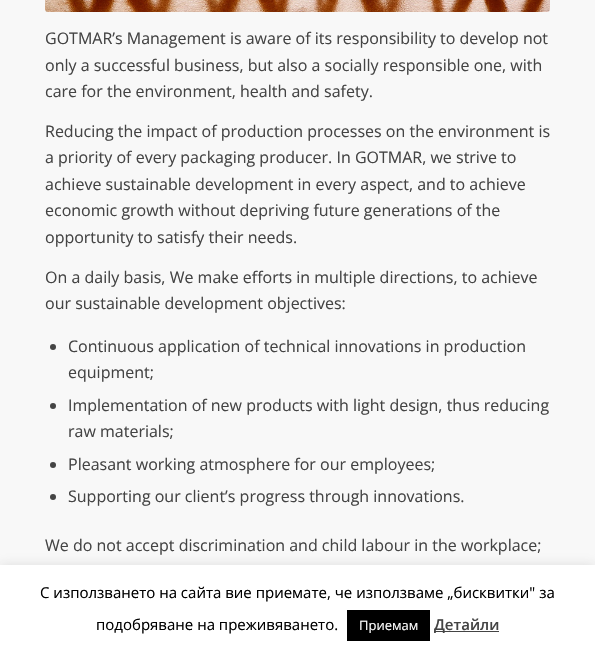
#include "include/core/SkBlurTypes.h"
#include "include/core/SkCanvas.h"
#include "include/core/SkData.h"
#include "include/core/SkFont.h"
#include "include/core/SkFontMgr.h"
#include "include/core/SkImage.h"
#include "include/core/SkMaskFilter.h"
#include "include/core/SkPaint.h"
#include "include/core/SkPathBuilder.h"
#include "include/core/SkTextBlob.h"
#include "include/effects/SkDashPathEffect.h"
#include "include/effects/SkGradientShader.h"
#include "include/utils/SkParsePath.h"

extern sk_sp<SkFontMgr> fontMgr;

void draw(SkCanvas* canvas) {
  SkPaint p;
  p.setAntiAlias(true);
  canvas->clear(SkColorSetRGB(248, 248, 248));
  canvas->drawImageRect(SkImages::DeferredFromEncodedData(SkData::MakeFromFileName("images/1.png")), SkRect::MakeLTRB(45, 0, 550, 12), SkSamplingOptions());
  p.setColor(SkColorSetRGB(68, 68, 68));
  canvas->drawCircle(53, 347, 3, p);
  canvas->drawCircle(53, 406, 3, p);
  canvas->drawCircle(53, 465, 3, p);
  canvas->drawCircle(53, 497, 3, p);
  p.setColor(SkColorSetARGB(77, 172, 171, 171));
  p.setMaskFilter(SkMaskFilter::MakeBlur(kNormal_SkBlurStyle, 5));
  canvas->drawRect(SkRect::MakeLTRB(0, 564, 595, 652), p);
  p.setMaskFilter(nullptr);
  p.setColor(SK_ColorWHITE);
  canvas->drawRect(SkRect::MakeLTRB(0, 565, 595, 653), p);
  p.setColor(SK_ColorBLACK);
  canvas->drawRect(SkRect::MakeLTRB(347, 610, 430, 641), p);
  p.setColor(SkColorSetRGB(68, 68, 68));
  canvas->drawRect(SkRect::MakeLTRB(434, 631, 499, 632), p);
  SkFont font1(fontMgr->matchFamilyStyle("Open Sans", SkFontStyle::Normal()), 16);
  font1.setSubpixel(true);
  canvas->drawString("GOTMAR’s Management is aware of its responsibility to develop not", 45, 44, font1, p);
  canvas->drawString("only a successful business, but also a socially responsible one, with", 45, 71, font1, p);
  canvas->drawString("care for the environment, health and safety.", 45, 97, font1, p);
  canvas->drawString("Reducing the impact of production processes on the environment is", 45, 137, font1, p);
  canvas->drawString("a priority of every packaging producer. In GOTMAR, we strive to", 45, 163, font1, p);
  canvas->drawString("achieve sustainable development in every aspect, and to achieve", 45, 190, font1, p);
  canvas->drawString("economic growth without depriving future generations of the", 45, 216, font1, p);
  canvas->drawString("opportunity to satisfy their needs.", 45, 243, font1, p);
  canvas->drawString("On a daily basis, We make efforts in multiple directions, to achieve", 45, 283, font1, p);
  canvas->drawString("our sustainable development objectives:", 45, 309, font1, p);
  canvas->drawString("Continuous application of technical innovations in production", 68, 352, font1, p);
  canvas->drawString("equipment;", 68, 378, font1, p);
  canvas->drawString("Implementation of new products with light design, thus reducing", 68, 411, font1, p);
  canvas->drawString("raw materials;", 68, 437, font1, p);
  canvas->drawString("Pleasant working atmosphere for our employees;", 68, 470, font1, p);
  canvas->drawString("Supporting our client’s progress through innovations.", 68, 502, font1, p);
  canvas->drawString("We do not accept discrimination and child labour in the workplace;", 45, 551, font1, p);
  SkFont font2(fontMgr->matchFamilyStyle("Open Sans", SkFontStyle::Normal()), 15);
  font2.setSubpixel(true);
  p.setColor(SK_ColorBLACK);
  canvas->drawString("С използването на сайта вие приемате, че използваме „бисквитки\" за", 40, 598, font2, p);
  canvas->drawString("подобряване на преживяването.", 96, 630, font2, p);
  SkFont font3(fontMgr->matchFamilyStyle("Open Sans", SkFontStyle::Normal()), 13);
  font3.setSubpixel(true);
  p.setColor(SK_ColorWHITE);
  canvas->drawString("Приемам", 359, 630, font3, p);
  SkFont font4(fontMgr->matchFamilyStyle("Open Sans", SkFontStyle(600, SkFontStyle::kNormal_Width, SkFontStyle::kUpright_Slant)), 15);
  font4.setSubpixel(true);
  p.setColor(SkColorSetRGB(68, 68, 68));
  canvas->drawString("Детайли", 434, 630, font4, p);
}
